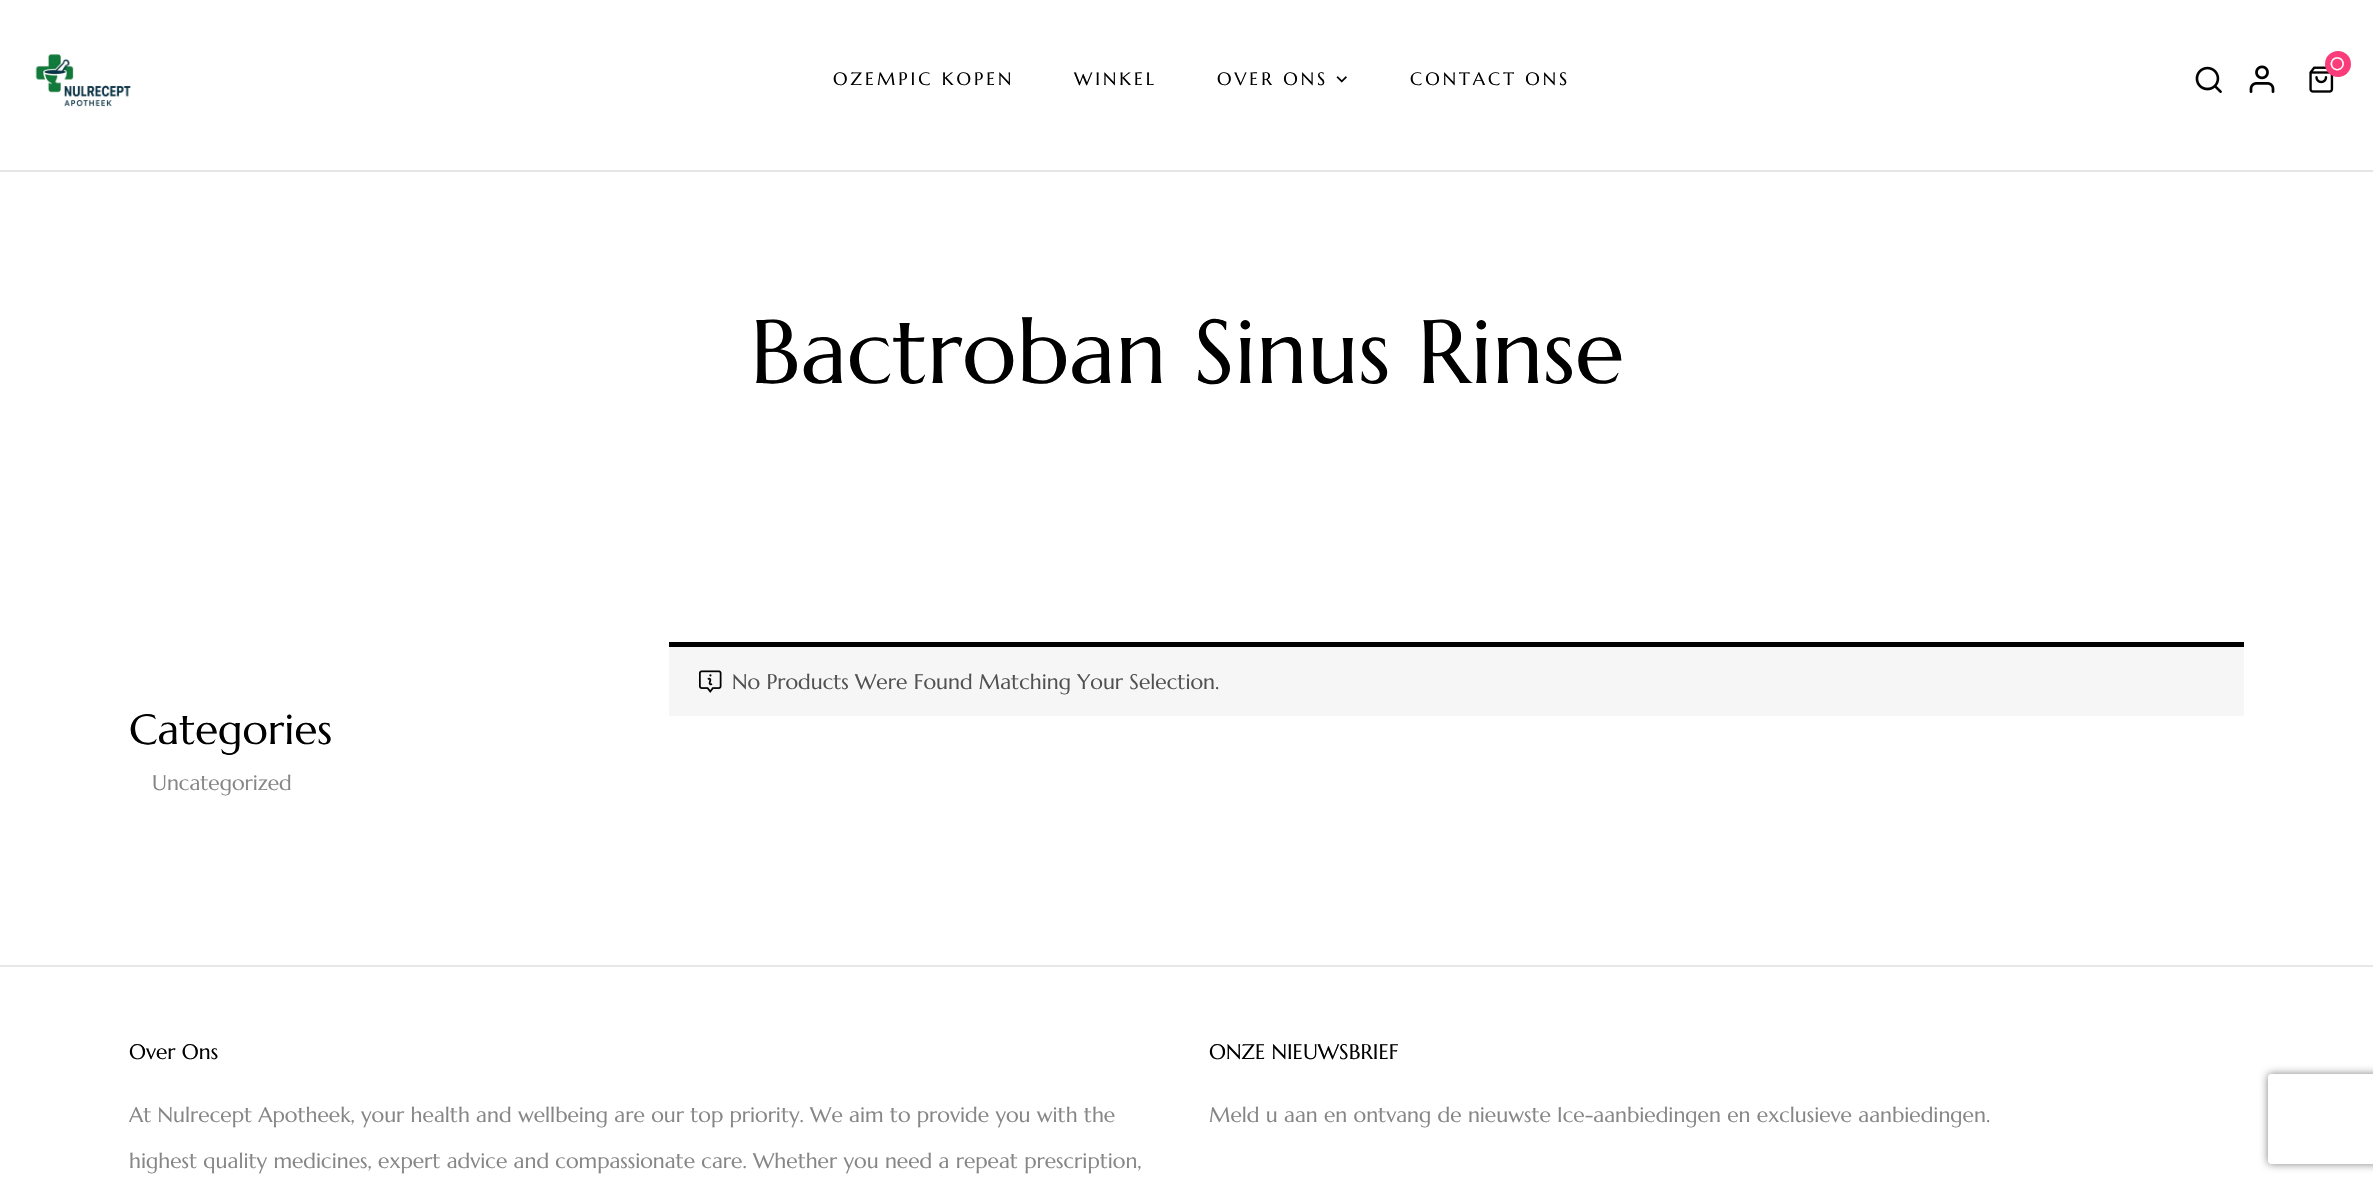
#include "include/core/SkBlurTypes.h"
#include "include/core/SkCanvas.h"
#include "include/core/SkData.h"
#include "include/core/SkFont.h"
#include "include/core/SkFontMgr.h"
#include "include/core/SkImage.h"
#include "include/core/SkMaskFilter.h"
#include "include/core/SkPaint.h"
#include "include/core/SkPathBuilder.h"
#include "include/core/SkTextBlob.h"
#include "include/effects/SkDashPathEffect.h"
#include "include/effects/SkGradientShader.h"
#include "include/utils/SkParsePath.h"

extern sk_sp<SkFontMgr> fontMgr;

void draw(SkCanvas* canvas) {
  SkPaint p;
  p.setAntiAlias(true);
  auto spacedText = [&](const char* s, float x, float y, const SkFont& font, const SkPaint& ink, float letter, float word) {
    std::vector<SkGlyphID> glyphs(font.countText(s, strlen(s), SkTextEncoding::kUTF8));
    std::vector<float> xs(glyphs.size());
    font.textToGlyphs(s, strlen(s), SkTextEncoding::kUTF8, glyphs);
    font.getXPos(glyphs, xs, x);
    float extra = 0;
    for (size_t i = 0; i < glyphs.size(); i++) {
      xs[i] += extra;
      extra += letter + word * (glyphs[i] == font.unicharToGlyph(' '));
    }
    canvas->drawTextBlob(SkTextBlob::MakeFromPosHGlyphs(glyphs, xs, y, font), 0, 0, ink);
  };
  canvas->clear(SK_ColorWHITE);
  p.setColor(SkColorSetRGB(229, 229, 229));
  canvas->drawRect(SkRect::MakeLTRB(0, 170, 2373, 172), p);
  canvas->drawImageRect(SkImages::DeferredFromEncodedData(SkData::MakeFromFileName("images/1.png")), SkRect::MakeLTRB(35, 54, 131, 107), SkSamplingOptions());
  canvas->drawImageRect(SkImages::DeferredFromEncodedData(SkData::MakeFromFileName("images/2.png")), SkRect::MakeLTRB(2195, 66, 2222, 93), SkSamplingOptions());
  canvas->drawImageRect(SkImages::DeferredFromEncodedData(SkData::MakeFromFileName("images/3.png")), SkRect::MakeLTRB(2249, 65, 2275, 93), SkSamplingOptions());
  canvas->drawImageRect(SkImages::DeferredFromEncodedData(SkData::MakeFromFileName("images/4.png")), SkRect::MakeLTRB(2309, 66, 2334, 93), SkSamplingOptions());
  p.setColor(SkColorSetRGB(250, 60, 122));
  canvas->drawCircle(2338, 64, 13, p);
  canvas->drawImageRect(SkImages::DeferredFromEncodedData(SkData::MakeFromFileName("images/5.png")), SkRect::MakeLTRB(1336, 76, 1347, 83), SkSamplingOptions());
  p.setColor(SkColorSetRGB(247, 246, 247));
  canvas->drawRect(SkRect::MakeLTRB(669, 647, 2244, 716), p);
  p.setColor(SK_ColorBLACK);
  canvas->drawRect(SkRect::MakeLTRB(669, 642, 2244, 647), p);
  canvas->drawImageRect(SkImages::DeferredFromEncodedData(SkData::MakeFromFileName("images/6.png")), SkRect::MakeLTRB(699, 670, 722, 693), SkSamplingOptions());
  p.setColor(SkColorSetRGB(231, 231, 231));
  canvas->drawRect(SkRect::MakeLTRB(0, 965, 2373, 967), p);
  canvas->save();
  canvas->clipPath(SkPathBuilder(SkPathFillType::kEvenOdd).moveTo(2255, 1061).lineTo(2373, 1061).lineTo(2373, 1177).lineTo(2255, 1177).close().moveTo(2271, 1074).lineTo(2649, 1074).cubicTo(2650.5f, 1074, 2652, 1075.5f, 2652, 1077).lineTo(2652, 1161).cubicTo(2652, 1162.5f, 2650.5f, 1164, 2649, 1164).lineTo(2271, 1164).cubicTo(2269.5f, 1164, 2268, 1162.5f, 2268, 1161).lineTo(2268, 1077).cubicTo(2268, 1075.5f, 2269.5f, 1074, 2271, 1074).close().detach(), true);
  p.setColor(SkColorSetRGB(128, 128, 128));
  p.setMaskFilter(SkMaskFilter::MakeBlur(kNormal_SkBlurStyle, 4));
  canvas->drawRoundRect(SkRect::MakeLTRB(2268, 1074, 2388, 1164), 3, 3, p);
  p.setMaskFilter(nullptr);
  canvas->restore();
  SkFont font1(fontMgr->matchFamilyStyle("Marcellus", SkFontStyle::Normal()), 18);
  font1.setSubpixel(true);
  p.setColor(SK_ColorWHITE);
  canvas->drawString("0", 2330, 70, font1, p);
  p.setColor(SK_ColorBLACK);
  spacedText("OZEMPIC KOPEN", 833, 85, font1, p, 3, 0);
  spacedText("WINKEL", 1074, 85, font1, p, 3, 0);
  spacedText("OVER ONS", 1217, 85, font1, p, 3, 0);
  spacedText("CONTACT ONS", 1410, 85, font1, p, 3, 0);
  SkFont font2(fontMgr->matchFamilyStyle("Marcellus", SkFontStyle::Normal()), 90);
  font2.setSubpixel(true);
  canvas->drawString("Bactroban Sinus Rinse", 750, 383, font2, p);
  SkFont font3(fontMgr->matchFamilyStyle("Marcellus", SkFontStyle::Normal()), 21);
  font3.setSubpixel(true);
  p.setColor(SkColorSetRGB(81, 81, 81));
  canvas->drawString("No Products Were Found Matching Your Selection.", 732, 689, font3, p);
  SkFont font4(fontMgr->matchFamilyStyle("Marcellus", SkFontStyle::Normal()), 42);
  font4.setSubpixel(true);
  p.setColor(SK_ColorBLACK);
  canvas->drawString("Categories", 129, 744, font4, p);
  p.setColor(SkColorSetRGB(134, 134, 134));
  canvas->drawString("Uncategorized", 152, 790, font3, p);
  p.setColor(SK_ColorBLACK);
  canvas->drawString("Over Ons", 129, 1059, font3, p);
  p.setColor(SkColorSetRGB(134, 134, 134));
  canvas->drawString("At Nulrecept Apotheek, your health and wellbeing are our top priority. We aim to provide you with the", 129, 1122, font3, p);
  canvas->drawString("highest quality medicines, expert advice and compassionate care. Whether you need a repeat prescription,", 129, 1168, font3, p);
  p.setColor(SK_ColorBLACK);
  canvas->drawString("ONZE NIEUWSBRIEF", 1209, 1059, font3, p);
  p.setColor(SkColorSetRGB(134, 134, 134));
  canvas->drawString("Meld u aan en ontvang de nieuwste Ice-aanbiedingen en exclusieve aanbiedingen.", 1209, 1122, font3, p);
}
